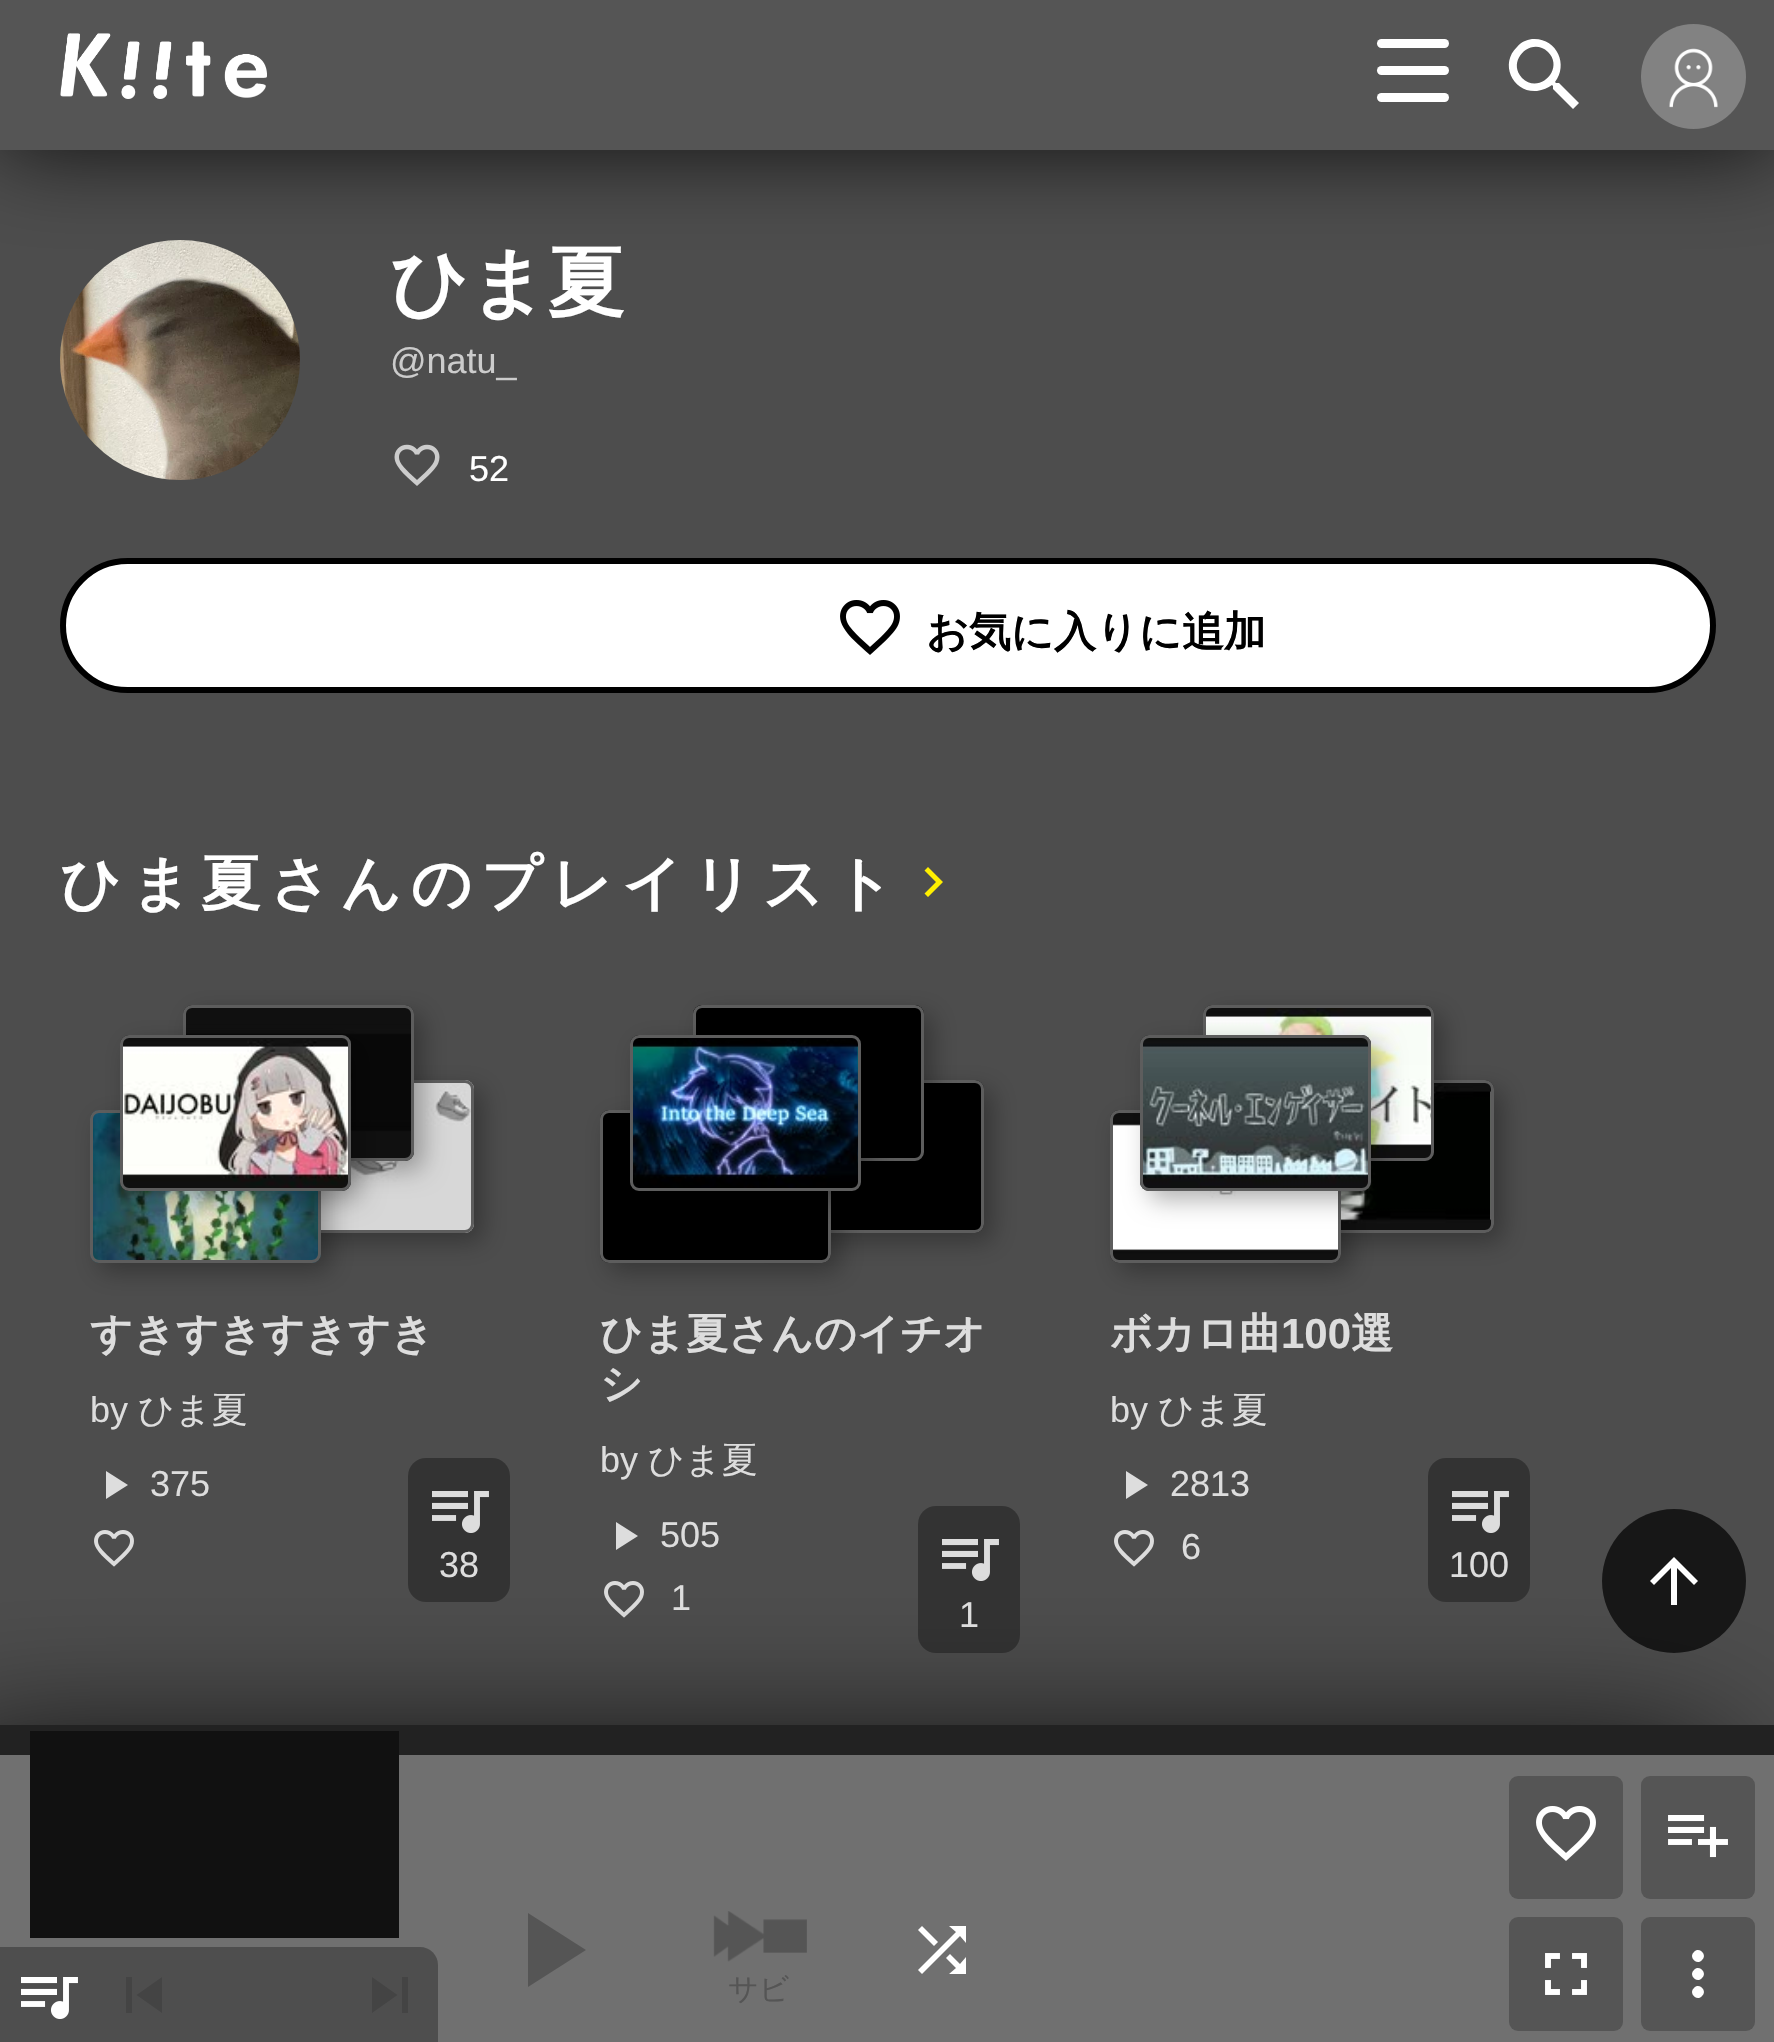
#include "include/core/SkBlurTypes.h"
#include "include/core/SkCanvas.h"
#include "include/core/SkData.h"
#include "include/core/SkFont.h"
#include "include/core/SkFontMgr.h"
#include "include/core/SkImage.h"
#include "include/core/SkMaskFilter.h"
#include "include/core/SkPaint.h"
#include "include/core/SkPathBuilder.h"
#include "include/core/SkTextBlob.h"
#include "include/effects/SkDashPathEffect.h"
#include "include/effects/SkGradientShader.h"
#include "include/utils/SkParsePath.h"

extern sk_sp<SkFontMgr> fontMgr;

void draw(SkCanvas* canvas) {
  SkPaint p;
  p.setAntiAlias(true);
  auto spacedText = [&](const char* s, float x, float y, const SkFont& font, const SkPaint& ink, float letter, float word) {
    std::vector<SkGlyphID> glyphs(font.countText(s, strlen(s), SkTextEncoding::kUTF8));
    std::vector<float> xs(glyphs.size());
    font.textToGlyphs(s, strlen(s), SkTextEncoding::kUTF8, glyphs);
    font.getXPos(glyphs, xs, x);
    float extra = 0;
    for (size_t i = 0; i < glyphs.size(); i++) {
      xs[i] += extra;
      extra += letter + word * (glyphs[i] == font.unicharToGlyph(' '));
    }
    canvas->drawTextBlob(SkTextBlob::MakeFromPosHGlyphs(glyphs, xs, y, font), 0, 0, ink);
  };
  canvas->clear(SkColorSetRGB(77, 77, 77));
  canvas->drawImageRect(SkImages::DeferredFromEncodedData(SkData::MakeFromFileName("images/3.png")), SkRect::MakeLTRB(60, 240, 300, 480), SkSamplingOptions());
  p.setColor(SkColorSetARGB(204, 0, 0, 0));
  p.setMaskFilter(SkMaskFilter::MakeBlur(kNormal_SkBlurStyle, 45));
  canvas->drawRect(SkRect::MakeLTRB(0, 0, 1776, 150), p);
  p.setMaskFilter(nullptr);
  p.setColor(SkColorSetRGB(85, 85, 85));
  canvas->drawRect(SkRect::MakeLTRB(0, 0, 1774, 150), p);
  canvas->drawImageRect(SkImages::DeferredFromEncodedData(SkData::MakeFromFileName("images/1.png")), SkRect::MakeLTRB(60, 33, 267, 99), SkSamplingOptions());
  p.setColor(SK_ColorWHITE);
  canvas->drawRoundRect(SkRect::MakeLTRB(1377, 39, 1449, 48), 4.5f, 4.5f, p);
  canvas->drawRoundRect(SkRect::MakeLTRB(1377, 66, 1449, 75), 4.5f, 4.5f, p);
  canvas->drawRoundRect(SkRect::MakeLTRB(1377, 93, 1449, 102), 4.5f, 4.5f, p);
  canvas->drawPath(SkPathBuilder().moveTo(1522, 78).cubicTo(1539, 95, 1565, 69, 1548, 52).cubicTo(1531, 36, 1506, 61, 1522, 78).close().moveTo(1559, 83).lineTo(1579, 103).lineTo(1573, 109).lineTo(1553, 89).lineTo(1553, 86).lineTo(1552, 85).cubicTo(1548, 88, 1543, 90, 1537, 91).cubicTo(1513, 93, 1499, 64, 1517, 47).cubicTo(1521, 42, 1526, 40, 1532, 39).cubicTo(1556, 37, 1569, 64, 1555, 82).lineTo(1556, 83).close().detach(), p);
  canvas->drawImageRect(SkImages::DeferredFromEncodedData(SkData::MakeFromFileName("images/2.png")), SkRect::MakeLTRB(1641, 24, 1746, 129), SkSamplingOptions());
  canvas->drawImageRect(SkImages::DeferredFromEncodedData(SkData::MakeFromFileName("images/4.png")), SkRect::MakeLTRB(394, 444, 440, 486), SkSamplingOptions());
  canvas->drawRoundRect(SkRect::MakeLTRB(63, 561, 1713, 690), 64.5f, 64.5f, p);
  p.setStyle(SkPaint::kStroke_Style);
  p.setStrokeWidth(6);
  p.setColor(SK_ColorBLACK);
  canvas->drawRoundRect(SkRect::MakeLTRB(63, 561, 1713, 690), 64.5f, 64.5f, p);
  canvas->drawImageRect(SkImages::DeferredFromEncodedData(SkData::MakeFromFileName("images/5.png")), SkRect::MakeLTRB(840, 600, 900, 655), SkSamplingOptions());
  p.setStyle(SkPaint::kFill_Style);
  p.setColor(SkColorSetRGB(255, 239, 0));
  canvas->drawPath(SkPathBuilder().moveTo(928, 867).lineTo(943, 882).lineTo(928, 897).lineTo(924.5f, 893.5f).lineTo(936, 882).lineTo(924.5f, 870.5f).close().detach(), p);
  p.setColor(SkColorSetARGB(77, 0, 0, 0));
  p.setMaskFilter(SkMaskFilter::MakeBlur(kNormal_SkBlurStyle, 12));
  canvas->drawRoundRect(SkRect::MakeLTRB(252, 1089, 483, 1242), 9, 9, p);
  p.setMaskFilter(nullptr);
  canvas->drawImageRect(SkImages::DeferredFromEncodedData(SkData::MakeFromFileName("images/9.png")), SkRect::MakeLTRB(321, 1080, 474, 1233), SkSamplingOptions());
  p.setStyle(SkPaint::kStroke_Style);
  p.setStrokeWidth(3);
  p.setColor(SkColorSetRGB(93, 93, 93));
  canvas->drawRoundRect(SkRect::MakeLTRB(244.5f, 1081.5f, 472.5f, 1231.5f), 7.5f, 7.5f, p);
  p.setStyle(SkPaint::kFill_Style);
  p.setColor(SkColorSetARGB(77, 0, 0, 0));
  p.setMaskFilter(SkMaskFilter::MakeBlur(kNormal_SkBlurStyle, 12));
  canvas->drawRoundRect(SkRect::MakeLTRB(99, 1119, 330, 1272), 9, 9, p);
  p.setMaskFilter(nullptr);
  canvas->drawImageRect(SkImages::DeferredFromEncodedData(SkData::MakeFromFileName("images/8.png")), SkRect::MakeLTRB(90, 1110, 321, 1263), SkSamplingOptions());
  p.setStyle(SkPaint::kStroke_Style);
  p.setColor(SkColorSetRGB(93, 93, 93));
  canvas->drawRoundRect(SkRect::MakeLTRB(91.5f, 1111.5f, 319.5f, 1261.5f), 7.5f, 7.5f, p);
  p.setStyle(SkPaint::kFill_Style);
  p.setColor(SkColorSetARGB(77, 0, 0, 0));
  p.setMaskFilter(SkMaskFilter::MakeBlur(kNormal_SkBlurStyle, 12));
  canvas->drawRoundRect(SkRect::MakeLTRB(192, 1014, 423, 1170), 9, 9, p);
  p.setMaskFilter(nullptr);
  canvas->drawImageRect(SkImages::DeferredFromEncodedData(SkData::MakeFromFileName("images/6.png")), SkRect::MakeLTRB(183, 1005, 414, 1161), SkSamplingOptions());
  p.setStyle(SkPaint::kStroke_Style);
  p.setColor(SkColorSetRGB(93, 93, 93));
  canvas->drawRoundRect(SkRect::MakeLTRB(184.5f, 1006.5f, 412.5f, 1159.5f), 7.5f, 7.5f, p);
  p.setStyle(SkPaint::kFill_Style);
  p.setColor(SkColorSetARGB(77, 0, 0, 0));
  p.setMaskFilter(SkMaskFilter::MakeBlur(kNormal_SkBlurStyle, 12));
  canvas->drawRoundRect(SkRect::MakeLTRB(129, 1044, 360, 1200), 9, 9, p);
  p.setMaskFilter(nullptr);
  canvas->drawImageRect(SkImages::DeferredFromEncodedData(SkData::MakeFromFileName("images/7.png")), SkRect::MakeLTRB(120, 1035, 351, 1191), SkSamplingOptions());
  p.setStyle(SkPaint::kStroke_Style);
  p.setColor(SkColorSetRGB(93, 93, 93));
  canvas->drawRoundRect(SkRect::MakeLTRB(121.5f, 1036.5f, 349.5f, 1189.5f), 7.5f, 7.5f, p);
  p.setStyle(SkPaint::kFill_Style);
  p.setColor(SkColorSetRGB(221, 221, 221));
  canvas->drawPath(SkPathBuilder().moveTo(106, 1471).lineTo(128, 1485).lineTo(106, 1499).close().detach(), p);
  canvas->drawImageRect(SkImages::DeferredFromEncodedData(SkData::MakeFromFileName("images/10.png")), SkRect::MakeLTRB(94, 1530, 134, 1567), SkSamplingOptions());
  p.setColor(SkColorSetRGB(51, 51, 51));
  canvas->drawRoundRect(SkRect::MakeLTRB(408, 1458, 510, 1602), 18, 18, p);
  canvas->drawImageRect(SkImages::DeferredFromEncodedData(SkData::MakeFromFileName("images/11.png")), SkRect::MakeLTRB(432, 1491, 489, 1533), SkSamplingOptions());
  p.setColor(SkColorSetARGB(77, 0, 0, 0));
  p.setMaskFilter(SkMaskFilter::MakeBlur(kNormal_SkBlurStyle, 12));
  canvas->drawRoundRect(SkRect::MakeLTRB(762, 1089, 993, 1242), 9, 9, p);
  p.setMaskFilter(nullptr);
  canvas->drawImageRect(SkImages::DeferredFromEncodedData(SkData::MakeFromFileName("images/15.png")), SkRect::MakeLTRB(831, 1080, 984, 1233), SkSamplingOptions());
  p.setStyle(SkPaint::kStroke_Style);
  p.setColor(SkColorSetRGB(93, 93, 93));
  canvas->drawRoundRect(SkRect::MakeLTRB(754.5f, 1081.5f, 982.5f, 1231.5f), 7.5f, 7.5f, p);
  p.setStyle(SkPaint::kFill_Style);
  p.setColor(SkColorSetARGB(77, 0, 0, 0));
  p.setMaskFilter(SkMaskFilter::MakeBlur(kNormal_SkBlurStyle, 12));
  canvas->drawRoundRect(SkRect::MakeLTRB(609, 1119, 840, 1272), 9, 9, p);
  p.setMaskFilter(nullptr);
  canvas->drawImageRect(SkImages::DeferredFromEncodedData(SkData::MakeFromFileName("images/14.png")), SkRect::MakeLTRB(600, 1110, 831, 1263), SkSamplingOptions());
  p.setStyle(SkPaint::kStroke_Style);
  p.setColor(SkColorSetRGB(93, 93, 93));
  canvas->drawRoundRect(SkRect::MakeLTRB(601.5f, 1111.5f, 829.5f, 1261.5f), 7.5f, 7.5f, p);
  p.setStyle(SkPaint::kFill_Style);
  p.setColor(SkColorSetARGB(77, 0, 0, 0));
  p.setMaskFilter(SkMaskFilter::MakeBlur(kNormal_SkBlurStyle, 12));
  canvas->drawRoundRect(SkRect::MakeLTRB(702, 1014, 933, 1170), 9, 9, p);
  p.setMaskFilter(nullptr);
  p.setColor(SK_ColorBLACK);
  canvas->drawRoundRect(SkRect::MakeLTRB(693, 1005, 924, 1161), 9, 9, p);
  canvas->drawImageRect(SkImages::DeferredFromEncodedData(SkData::MakeFromFileName("images/12.png")), SkRect::MakeLTRB(693, 1005, 924, 1013), SkSamplingOptions());
  p.setStyle(SkPaint::kStroke_Style);
  p.setColor(SkColorSetRGB(93, 93, 93));
  canvas->drawRoundRect(SkRect::MakeLTRB(694.5f, 1006.5f, 922.5f, 1159.5f), 7.5f, 7.5f, p);
  p.setStyle(SkPaint::kFill_Style);
  p.setColor(SkColorSetARGB(77, 0, 0, 0));
  p.setMaskFilter(SkMaskFilter::MakeBlur(kNormal_SkBlurStyle, 12));
  canvas->drawRoundRect(SkRect::MakeLTRB(639, 1044, 870, 1200), 9, 9, p);
  p.setMaskFilter(nullptr);
  canvas->drawImageRect(SkImages::DeferredFromEncodedData(SkData::MakeFromFileName("images/13.png")), SkRect::MakeLTRB(630, 1035, 861, 1191), SkSamplingOptions());
  p.setStyle(SkPaint::kStroke_Style);
  p.setColor(SkColorSetRGB(93, 93, 93));
  canvas->drawRoundRect(SkRect::MakeLTRB(631.5f, 1036.5f, 859.5f, 1189.5f), 7.5f, 7.5f, p);
  p.setStyle(SkPaint::kFill_Style);
  p.setColor(SkColorSetRGB(221, 221, 221));
  canvas->drawPath(SkPathBuilder().moveTo(616, 1522).lineTo(638, 1536).lineTo(616, 1550).close().detach(), p);
  canvas->drawImageRect(SkImages::DeferredFromEncodedData(SkData::MakeFromFileName("images/10.png")), SkRect::MakeLTRB(604, 1581, 644, 1618), SkSamplingOptions());
  p.setColor(SkColorSetRGB(51, 51, 51));
  canvas->drawRoundRect(SkRect::MakeLTRB(918, 1506, 1020, 1653), 18, 18, p);
  canvas->drawImageRect(SkImages::DeferredFromEncodedData(SkData::MakeFromFileName("images/11.png")), SkRect::MakeLTRB(942, 1539, 999, 1581), SkSamplingOptions());
  p.setColor(SkColorSetARGB(77, 0, 0, 0));
  p.setMaskFilter(SkMaskFilter::MakeBlur(kNormal_SkBlurStyle, 12));
  canvas->drawRoundRect(SkRect::MakeLTRB(1272, 1089, 1503, 1242), 9, 9, p);
  p.setMaskFilter(nullptr);
  canvas->drawImageRect(SkImages::DeferredFromEncodedData(SkData::MakeFromFileName("images/19.png")), SkRect::MakeLTRB(1341, 1080, 1494, 1233), SkSamplingOptions());
  p.setStyle(SkPaint::kStroke_Style);
  p.setColor(SkColorSetRGB(93, 93, 93));
  canvas->drawRoundRect(SkRect::MakeLTRB(1264.5f, 1081.5f, 1492.5f, 1231.5f), 7.5f, 7.5f, p);
  p.setStyle(SkPaint::kFill_Style);
  p.setColor(SkColorSetARGB(77, 0, 0, 0));
  p.setMaskFilter(SkMaskFilter::MakeBlur(kNormal_SkBlurStyle, 12));
  canvas->drawRoundRect(SkRect::MakeLTRB(1119, 1119, 1350, 1272), 9, 9, p);
  p.setMaskFilter(nullptr);
  canvas->drawImageRect(SkImages::DeferredFromEncodedData(SkData::MakeFromFileName("images/18.png")), SkRect::MakeLTRB(1110, 1110, 1341, 1263), SkSamplingOptions());
  p.setStyle(SkPaint::kStroke_Style);
  p.setColor(SkColorSetRGB(93, 93, 93));
  canvas->drawRoundRect(SkRect::MakeLTRB(1111.5f, 1111.5f, 1339.5f, 1261.5f), 7.5f, 7.5f, p);
  p.setStyle(SkPaint::kFill_Style);
  p.setColor(SkColorSetARGB(77, 0, 0, 0));
  p.setMaskFilter(SkMaskFilter::MakeBlur(kNormal_SkBlurStyle, 12));
  canvas->drawRoundRect(SkRect::MakeLTRB(1212, 1014, 1443, 1170), 9, 9, p);
  p.setMaskFilter(nullptr);
  canvas->drawImageRect(SkImages::DeferredFromEncodedData(SkData::MakeFromFileName("images/16.png")), SkRect::MakeLTRB(1203, 1005, 1434, 1161), SkSamplingOptions());
  p.setStyle(SkPaint::kStroke_Style);
  p.setColor(SkColorSetRGB(93, 93, 93));
  canvas->drawRoundRect(SkRect::MakeLTRB(1204.5f, 1006.5f, 1432.5f, 1159.5f), 7.5f, 7.5f, p);
  p.setStyle(SkPaint::kFill_Style);
  p.setColor(SkColorSetARGB(77, 0, 0, 0));
  p.setMaskFilter(SkMaskFilter::MakeBlur(kNormal_SkBlurStyle, 12));
  canvas->drawRoundRect(SkRect::MakeLTRB(1149, 1044, 1380, 1200), 9, 9, p);
  p.setMaskFilter(nullptr);
  canvas->drawImageRect(SkImages::DeferredFromEncodedData(SkData::MakeFromFileName("images/17.png")), SkRect::MakeLTRB(1140, 1035, 1371, 1191), SkSamplingOptions());
  p.setStyle(SkPaint::kStroke_Style);
  p.setColor(SkColorSetRGB(93, 93, 93));
  canvas->drawRoundRect(SkRect::MakeLTRB(1141.5f, 1036.5f, 1369.5f, 1189.5f), 7.5f, 7.5f, p);
  p.setStyle(SkPaint::kFill_Style);
  p.setColor(SkColorSetRGB(221, 221, 221));
  canvas->drawPath(SkPathBuilder().moveTo(1126, 1471).lineTo(1148, 1485).lineTo(1126, 1499).close().detach(), p);
  canvas->drawImageRect(SkImages::DeferredFromEncodedData(SkData::MakeFromFileName("images/10.png")), SkRect::MakeLTRB(1114, 1530, 1154, 1567), SkSamplingOptions());
  p.setColor(SkColorSetRGB(51, 51, 51));
  canvas->drawRoundRect(SkRect::MakeLTRB(1428, 1458, 1530, 1602), 18, 18, p);
  canvas->drawImageRect(SkImages::DeferredFromEncodedData(SkData::MakeFromFileName("images/11.png")), SkRect::MakeLTRB(1452, 1491, 1509, 1533), SkSamplingOptions());
  p.setColor(SkColorSetRGB(23, 23, 23));
  canvas->drawCircle(1674, 1581, 72, p);
  p.setColor(SK_ColorWHITE);
  canvas->drawPath(SkPathBuilder().moveTo(1650, 1581).lineTo(1674, 1557).lineTo(1698, 1581).lineTo(1694, 1585).lineTo(1677, 1568).lineTo(1677, 1605).lineTo(1671, 1605).lineTo(1671, 1568).lineTo(1654, 1585).close().detach(), p);
  p.setColor(SK_ColorBLACK);
  p.setMaskFilter(SkMaskFilter::MakeBlur(kNormal_SkBlurStyle, 75));
  canvas->drawRect(SkRect::MakeLTRB(-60, 1755, 1716, 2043), p);
  p.setMaskFilter(nullptr);
  p.setColor(SkColorSetRGB(34, 34, 34));
  canvas->drawRect(SkRect::MakeLTRB(0, 1725, 1774, 1755), p);
  p.setColor(SkColorSetRGB(112, 112, 112));
  canvas->drawRect(SkRect::MakeLTRB(0, 1755, 1774, 2042), p);
  p.setColor(SkColorSetRGB(17, 17, 17));
  canvas->drawRect(SkRect::MakeLTRB(30, 1731, 399, 1938), p);
  p.setColor(SkColorSetRGB(78, 78, 78));
  canvas->drawPath(SkPathBuilder().moveTo(0, 1947).lineTo(420, 1947).cubicTo(430, 1947, 438, 1955, 438, 1965).lineTo(438, 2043).lineTo(0, 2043).close().detach(), p);
  canvas->drawImageRect(SkImages::DeferredFromEncodedData(SkData::MakeFromFileName("images/20.png")), SkRect::MakeLTRB(21, 1977, 78, 2019), SkSamplingOptions());
  p.setColor(SkColorSetRGB(68, 68, 68));
  canvas->drawPath(SkPathBuilder().moveTo(136.5f, 1995).lineTo(162, 1977).lineTo(162, 2013).close().moveTo(126, 1977).lineTo(132, 1977).lineTo(132, 2013).lineTo(126, 2013).close().detach(), p);
  canvas->drawPath(SkPathBuilder().moveTo(402, 1977).lineTo(408, 1977).lineTo(408, 2013).lineTo(402, 2013).close().moveTo(372, 2013).lineTo(372, 1977).lineTo(397.5f, 1995).close().detach(), p);
  p.setColor(SkColorSetRGB(85, 85, 85));
  canvas->drawPath(SkPathBuilder().moveTo(528, 1913).lineTo(586, 1950).lineTo(528, 1987).close().detach(), p);
  p.setColor(SK_ColorWHITE);
  canvas->drawPath(SkPathBuilder().moveTo(950, 1954).lineTo(960, 1964).lineTo(966, 1957).lineTo(966, 1974).lineTo(949, 1974).lineTo(956, 1968).lineTo(946, 1958).close().moveTo(949, 1926).lineTo(966, 1926).lineTo(966, 1943).lineTo(960, 1936).lineTo(922, 1974).lineTo(918, 1970).lineTo(956, 1932).close().moveTo(938, 1942).lineTo(934, 1946).lineTo(918, 1930).lineTo(922, 1926).close().detach(), p);
  canvas->drawImageRect(SkImages::DeferredFromEncodedData(SkData::MakeFromFileName("images/21.png")), SkRect::MakeLTRB(713, 1911, 807, 1962), SkSamplingOptions());
  p.setColor(SkColorSetRGB(85, 85, 85));
  canvas->drawRoundRect(SkRect::MakeLTRB(1509, 1776, 1623, 1899), 9, 9, p);
  canvas->drawImageRect(SkImages::DeferredFromEncodedData(SkData::MakeFromFileName("images/22.png")), SkRect::MakeLTRB(1536, 1806, 1596, 1861), SkSamplingOptions());
  canvas->drawRoundRect(SkRect::MakeLTRB(1641, 1776, 1755, 1899), 9, 9, p);
  canvas->drawImageRect(SkImages::DeferredFromEncodedData(SkData::MakeFromFileName("images/23.png")), SkRect::MakeLTRB(1668, 1815, 1728, 1858), SkSamplingOptions());
  canvas->drawRoundRect(SkRect::MakeLTRB(1509, 1917, 1623, 2031), 9, 9, p);
  canvas->drawImageRect(SkImages::DeferredFromEncodedData(SkData::MakeFromFileName("images/24.png")), SkRect::MakeLTRB(1545, 1953, 1587, 1995), SkSamplingOptions());
  canvas->drawRoundRect(SkRect::MakeLTRB(1641, 1917, 1755, 2031), 9, 9, p);
  p.setColor(SK_ColorWHITE);
  canvas->drawPath(SkPathBuilder().moveTo(1694, 1988).cubicTo(1699, 1982, 1708, 1991, 1702, 1996).cubicTo(1697, 2002, 1688, 1993, 1694, 1988).close().moveTo(1694, 1970).cubicTo(1699, 1964, 1708, 1973, 1702, 1978).cubicTo(1697, 1984, 1688, 1975, 1694, 1970).close().moveTo(1702, 1960).cubicTo(1697, 1966, 1688, 1957, 1694, 1952).cubicTo(1699, 1946, 1708, 1955, 1702, 1960).close().detach(), p);
  SkFont font1(fontMgr->matchFamilyStyle("WenQuanYi Zen Hei", SkFontStyle::Bold()), 77);
  font1.setSubpixel(true);
  canvas->drawString("ひま夏", 390, 309, font1, p);
  SkFont font2(fontMgr->matchFamilyStyle("Liberation Sans", SkFontStyle::Normal()), 36);
  font2.setSubpixel(true);
  p.setColor(SkColorSetRGB(204, 204, 204));
  canvas->drawString("@natu_", 390, 373, font2, p);
  p.setColor(SK_ColorWHITE);
  canvas->drawString("52", 469, 481, font2, p);
  SkFont font3(fontMgr->matchFamilyStyle("WenQuanYi Zen Hei", SkFontStyle::Bold()), 42);
  font3.setSubpixel(true);
  p.setColor(SK_ColorBLACK);
  canvas->drawString("お気に入りに追加", 926, 646, font3, p);
  SkFont font4(fontMgr->matchFamilyStyle("WenQuanYi Zen Hei", SkFontStyle::Bold()), 60);
  font4.setSubpixel(true);
  p.setColor(SK_ColorWHITE);
  spacedText("ひま夏さんのプレイリスト", 60, 904, font4, p, 9, 0);
  p.setColor(SkColorSetRGB(221, 221, 221));
  canvas->drawString("すきすきすきすき", 90, 1348, font3, p);
  canvas->drawString("by", 90, 1422, font2, p);
  SkFont font5(fontMgr->matchFamilyStyle("WenQuanYi Zen Hei", SkFontStyle(500, SkFontStyle::kNormal_Width, SkFontStyle::kUpright_Slant)), 36);
  font5.setSubpixel(true);
  canvas->drawString("ひま夏", 138, 1422, font5, p);
  canvas->drawString("375", 150, 1496, font2, p);
  canvas->drawString("38", 439, 1577, font2, p);
  canvas->drawString("ひま夏さんのイチオ", 600, 1348, font3, p);
  canvas->drawString("シ", 600, 1398, font3, p);
  canvas->drawString("by", 600, 1472, font2, p);
  canvas->drawString("ひま夏", 648, 1472, font5, p);
  canvas->drawString("505", 660, 1547, font2, p);
  canvas->drawString("1", 671, 1610, font2, p);
  canvas->drawString("1", 959, 1627, font2, p);
  canvas->drawString("ボカロ曲", 1110, 1348, font3, p);
  SkFont font6(fontMgr->matchFamilyStyle("Liberation Sans", SkFontStyle::Bold()), 42);
  font6.setSubpixel(true);
  canvas->drawString("100", 1281, 1348, font6, p);
  canvas->drawString("選", 1351, 1348, font3, p);
  canvas->drawString("by", 1110, 1422, font2, p);
  canvas->drawString("ひま夏", 1158, 1422, font5, p);
  canvas->drawString("2813", 1170, 1496, font2, p);
  canvas->drawString("6", 1181, 1559, font2, p);
  canvas->drawString("100", 1449, 1577, font2, p);
  SkFont font7(fontMgr->matchFamilyStyle("WenQuanYi Zen Hei", SkFontStyle(500, SkFontStyle::kNormal_Width, SkFontStyle::kUpright_Slant)), 30);
  font7.setSubpixel(true);
  p.setColor(SkColorSetRGB(85, 85, 85));
  canvas->drawString("サビ", 728, 1999, font7, p);
}
